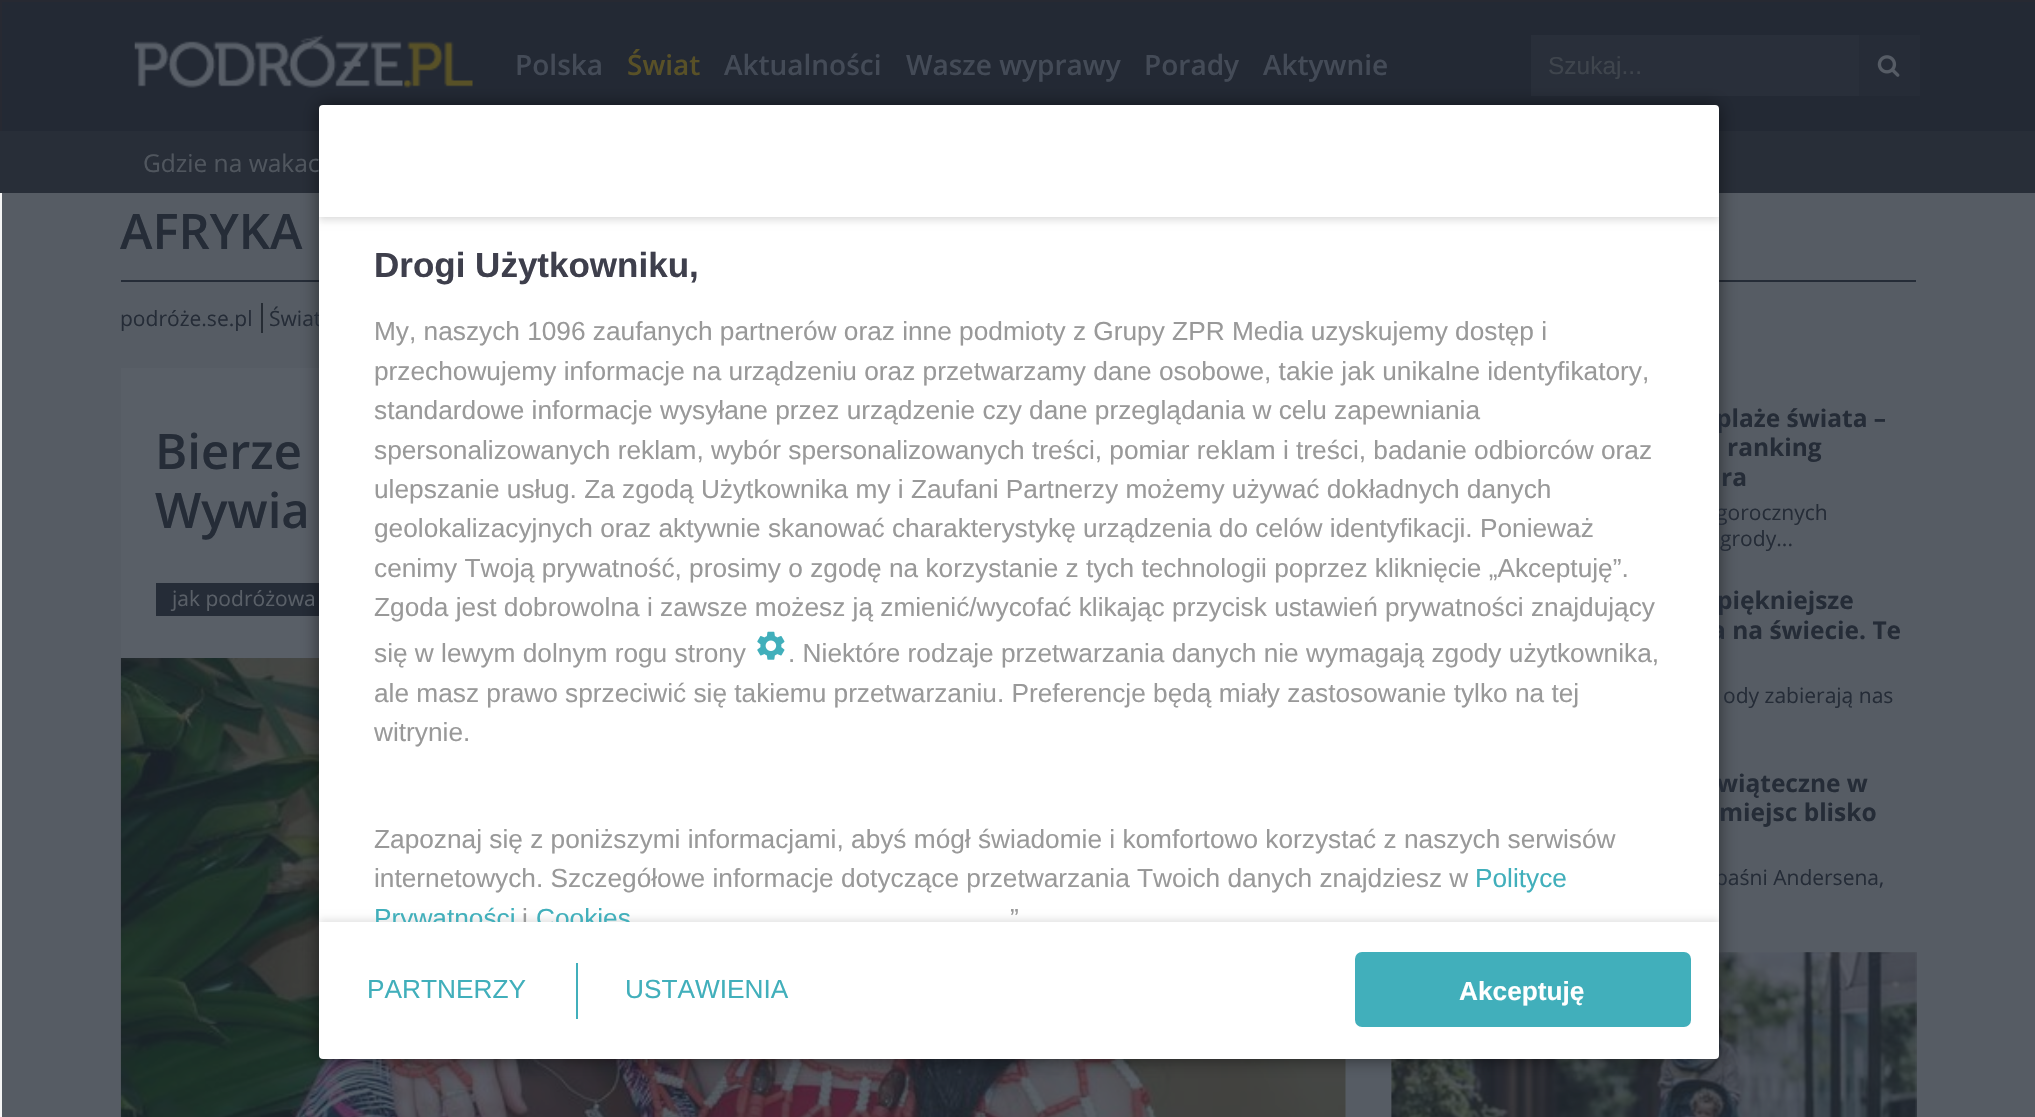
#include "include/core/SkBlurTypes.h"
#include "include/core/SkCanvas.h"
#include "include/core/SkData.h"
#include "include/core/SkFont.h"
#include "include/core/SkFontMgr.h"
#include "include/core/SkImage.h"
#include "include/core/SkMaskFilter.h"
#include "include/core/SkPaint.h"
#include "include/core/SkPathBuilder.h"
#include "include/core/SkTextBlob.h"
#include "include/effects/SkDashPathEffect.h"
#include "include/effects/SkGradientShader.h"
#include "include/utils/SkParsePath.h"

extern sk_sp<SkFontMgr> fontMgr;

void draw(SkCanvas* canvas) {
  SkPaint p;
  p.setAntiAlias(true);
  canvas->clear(SkColorSetRGB(245, 245, 245));
  p.setColor(SkColorSetRGB(86, 92, 100));
  canvas->drawRect(SkRect::MakeLTRB(2, 193, 2035, 1117), p);
  p.setColor(SkColorSetRGB(39, 41, 50));
  canvas->drawRect(SkRect::MakeLTRB(0, 0, 2035, 131), p);
  p.setColor(SkColorSetRGB(35, 41, 52));
  canvas->drawRect(SkRect::MakeLTRB(2, 2, 2035, 131), p);
  canvas->drawImageRect(SkImages::DeferredFromEncodedData(SkData::MakeFromFileName("images/1.png")), SkRect::MakeLTRB(134, 35, 473, 88), SkSamplingOptions());
  p.setColor(SkColorSetRGB(41, 47, 58));
  canvas->drawRect(SkRect::MakeLTRB(1531, 35, 1859, 96), p);
  p.setColor(SkColorSetRGB(38, 44, 55));
  canvas->drawRect(SkRect::MakeLTRB(1859, 35, 1920, 96), p);
  canvas->drawImageRect(SkImages::DeferredFromEncodedData(SkData::MakeFromFileName("images/2.png")), SkRect::MakeLTRB(1877, 55, 1900, 77), SkSamplingOptions());
  p.setColor(SkColorSetRGB(40, 46, 56));
  canvas->drawRect(SkRect::MakeLTRB(0, 131, 2035, 193), p);
  p.setColor(SkColorSetRGB(37, 44, 55));
  canvas->drawRect(SkRect::MakeLTRB(121, 280, 1916, 282), p);
  p.setColor(SkColorSetRGB(38, 44, 52));
  canvas->drawRect(SkRect::MakeLTRB(261, 303, 263, 333), p);
  p.setColor(SkColorSetRGB(89, 95, 103));
  canvas->drawRect(SkRect::MakeLTRB(121, 368, 1346, 1117), p);
  p.setColor(SkColorSetRGB(37, 44, 55));
  canvas->drawRect(SkRect::MakeLTRB(156, 583, 319, 616), p);
  canvas->drawImageRect(SkImages::DeferredFromEncodedData(SkData::MakeFromFileName("images/3.png")), SkRect::MakeLTRB(120, 658, 1346, 1117), SkSamplingOptions());
  canvas->drawImageRect(SkImages::DeferredFromEncodedData(SkData::MakeFromFileName("images/4.png")), SkRect::MakeLTRB(1391, 952, 1917, 1117), SkSamplingOptions());
  p.setColor(SkColorSetARGB(128, 0, 0, 0));
  p.setMaskFilter(SkMaskFilter::MakeBlur(kNormal_SkBlurStyle, 9));
  canvas->drawRoundRect(SkRect::MakeLTRB(319, 105, 1719, 1059), 4, 4, p);
  p.setMaskFilter(nullptr);
  SkFont font1(fontMgr->matchFamilyStyle("Open Sans", SkFontStyle(600, SkFontStyle::kNormal_Width, SkFontStyle::kUpright_Slant)), 28);
  font1.setSubpixel(true);
  p.setColor(SkColorSetRGB(68, 75, 87));
  canvas->drawString("Polska", 515, 75, font1, p);
  p.setColor(SkColorSetRGB(89, 81, 39));
  canvas->drawString("Świat", 627, 75, font1, p);
  p.setColor(SkColorSetRGB(68, 75, 87));
  canvas->drawString("Aktualności", 724, 75, font1, p);
  canvas->drawString("Wasze wyprawy", 906, 75, font1, p);
  canvas->drawString("Porady", 1144, 75, font1, p);
  canvas->drawString("Aktywnie", 1263, 75, font1, p);
  SkFont font2(fontMgr->matchFamilyStyle("Liberation Sans", SkFontStyle::Normal()), 24.5f);
  font2.setSubpixel(true);
  p.setColor(SkColorSetRGB(63, 69, 77));
  canvas->drawString("Szukaj...", 1548, 74, font2, p);
  SkFont font3(fontMgr->matchFamilyStyle("Open Sans", SkFontStyle::Normal()), 24.5f);
  font3.setSubpixel(true);
  p.setColor(SkColorSetRGB(80, 86, 94));
  canvas->drawString("Gdzie na wakac", 143, 172, font3, p);
  SkFont font4(fontMgr->matchFamilyStyle("Open Sans", SkFontStyle(600, SkFontStyle::kNormal_Width, SkFontStyle::kUpright_Slant)), 49);
  font4.setSubpixel(true);
  p.setColor(SkColorSetRGB(37, 44, 55));
  canvas->drawString("AFRYKA", 120, 249, font4, p);
  SkFont font5(fontMgr->matchFamilyStyle("Open Sans", SkFontStyle::Normal()), 21);
  font5.setSubpixel(true);
  canvas->drawString("podróże.se.pl", 120, 326, font5, p);
  canvas->drawString("Świat", 269, 326, font5, p);
  canvas->drawString("Bierze", 155, 469, font4, p);
  canvas->drawString("Wywia", 155, 528, font4, p);
  p.setColor(SkColorSetRGB(89, 95, 103));
  canvas->drawString("jak podróżowa", 172, 606, font5, p);
  SkFont font6(fontMgr->matchFamilyStyle("Open Sans", SkFontStyle::Bold()), 24.5f);
  font6.setSubpixel(true);
  p.setColor(SkColorSetRGB(37, 44, 55));
  canvas->drawString("plaże świata –", 1716, 427, font6, p);
  canvas->drawString("ranking", 1727, 456, font6, p);
  canvas->drawString("ra", 1721, 486, font6, p);
  canvas->drawString("gorocznych", 1716, 520, font5, p);
  canvas->drawString("grody...", 1720, 546, font5, p);
  canvas->drawString("piękniejsze", 1717, 609, font6, p);
  canvas->drawString("a na świecie. Te", 1711, 639, font6, p);
  canvas->drawString("ody zabierają nas", 1723, 703, font5, p);
  canvas->drawString("wiąteczne w", 1717, 792, font6, p);
  canvas->drawString("miejsc blisko", 1719, 821, font6, p);
  canvas->drawString("baśni Andersena,", 1715, 885, font5, p);
  p.setColor(SK_ColorWHITE);
  canvas->drawRoundRect(SkRect::MakeLTRB(319, 105, 1719, 1059), 4, 4, p);
  canvas->save();
  canvas->clipPath(SkPathBuilder().moveTo(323, 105).lineTo(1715, 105).cubicTo(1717, 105, 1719, 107, 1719, 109).lineTo(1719, 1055).cubicTo(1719, 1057, 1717, 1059, 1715, 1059).lineTo(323, 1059).cubicTo(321, 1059, 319, 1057, 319, 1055).lineTo(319, 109).cubicTo(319, 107, 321, 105, 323, 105).close().detach(), true);
  canvas->clipPath(SkPathBuilder(SkPathFillType::kEvenOdd).moveTo(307, 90).lineTo(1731, 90).lineTo(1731, 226).lineTo(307, 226).close().moveTo(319, 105).lineTo(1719, 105).lineTo(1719, 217).lineTo(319, 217).close().detach(), true);
  p.setColor(SkColorSetARGB(26, 0, 0, 0));
  p.setMaskFilter(SkMaskFilter::MakeBlur(kNormal_SkBlurStyle, 3.5f));
  canvas->drawRect(SkRect::MakeLTRB(319, 102, 1719, 214), p);
  p.setMaskFilter(nullptr);
  canvas->restore();
  canvas->save();
  canvas->clipPath(SkPathBuilder().moveTo(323, 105).lineTo(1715, 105).cubicTo(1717, 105, 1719, 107, 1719, 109).lineTo(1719, 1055).cubicTo(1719, 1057, 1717, 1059, 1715, 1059).lineTo(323, 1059).cubicTo(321, 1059, 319, 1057, 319, 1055).lineTo(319, 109).cubicTo(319, 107, 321, 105, 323, 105).close().detach(), true);
  canvas->clipPath(SkPathBuilder(SkPathFillType::kEvenOdd).moveTo(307, 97).lineTo(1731, 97).lineTo(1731, 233).lineTo(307, 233).close().moveTo(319, 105).lineTo(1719, 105).lineTo(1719, 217).lineTo(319, 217).close().detach(), true);
  p.setMaskFilter(SkMaskFilter::MakeBlur(kNormal_SkBlurStyle, 3.5f));
  canvas->drawRect(SkRect::MakeLTRB(319, 109, 1719, 221), p);
  p.setMaskFilter(nullptr);
  canvas->restore();
  SkFont font7(fontMgr->matchFamilyStyle("Liberation Sans", SkFontStyle::Bold()), 35);
  font7.setSubpixel(true);
  p.setColor(SkColorSetRGB(62, 63, 76));
  canvas->drawString("Drogi Użytkowniku,", 374, 277, font7, p);
  SkFont font8(fontMgr->matchFamilyStyle("Liberation Sans", SkFontStyle::Normal()), 26.25f);
  font8.setSubpixel(true);
  p.setColor(SkColorSetRGB(153, 153, 153));
  canvas->drawString("My, naszych 1096 zaufanych partnerów oraz inne podmioty z Grupy ZPR Media uzyskujemy dostęp i", 374, 340, font8, p);
  canvas->drawString("przechowujemy informacje na urządzeniu oraz przetwarzamy dane osobowe, takie jak unikalne identyfikatory,", 374, 380, font8, p);
  canvas->drawString("standardowe informacje wysyłane przez urządzenie czy dane przeglądania w celu zapewniania", 374, 419, font8, p);
  canvas->drawString("spersonalizowanych reklam, wybór spersonalizowanych treści, pomiar reklam i treści, badanie odbiorców oraz", 374, 459, font8, p);
  canvas->drawString("ulepszanie usług. Za zgodą Użytkownika my i Zaufani Partnerzy możemy używać dokładnych danych", 374, 498, font8, p);
  canvas->drawString("geolokalizacyjnych oraz aktywnie skanować charakterystykę urządzenia do celów identyfikacji. Ponieważ", 374, 537, font8, p);
  canvas->drawString("cenimy Twoją prywatność, prosimy o zgodę na korzystanie z tych technologii poprzez kliknięcie „Akceptuję”.", 374, 577, font8, p);
  canvas->drawString("Zgoda jest dobrowolna i zawsze możesz ją zmienić/wycofać klikając przycisk ustawień prywatności znajdujący", 374, 616, font8, p);
  canvas->drawString("się w lewym dolnym rogu strony", 374, 662, font8, p);
  canvas->drawImageRect(SkImages::DeferredFromEncodedData(SkData::MakeFromFileName("images/5.png")), SkRect::MakeLTRB(757, 631, 785, 660), SkSamplingOptions());
  canvas->drawString(". Niektóre rodzaje przetwarzania danych nie wymagają zgody użytkownika,", 788, 662, font8, p);
  canvas->drawString("ale masz prawo sprzeciwić się takiemu przetwarzaniu. Preferencje będą miały zastosowanie tylko na tej", 374, 702, font8, p);
  canvas->drawString("witrynie.", 374, 741, font8, p);
  canvas->drawString("Zapoznaj się z poniższymi informacjami, abyś mógł świadomie i komfortowo korzystać z naszych serwisów", 374, 848, font8, p);
  canvas->drawString("internetowych. Szczegółowe informacje dotyczące przetwarzania Twoich danych znajdziesz w", 374, 887, font8, p);
  p.setColor(SkColorSetRGB(65, 175, 187));
  canvas->drawString("Polityce", 1475, 887, font8, p);
  canvas->save();
  canvas->clipPath(SkPathBuilder().moveTo(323, 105).lineTo(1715, 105).cubicTo(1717, 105, 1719, 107, 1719, 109).lineTo(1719, 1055).cubicTo(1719, 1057, 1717, 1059, 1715, 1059).lineTo(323, 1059).cubicTo(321, 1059, 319, 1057, 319, 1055).lineTo(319, 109).cubicTo(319, 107, 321, 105, 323, 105).close().detach(), true);
  canvas->clipPath(SkPathBuilder(SkPathFillType::kEvenOdd).moveTo(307, 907).lineTo(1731, 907).lineTo(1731, 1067).lineTo(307, 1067).close().moveTo(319, 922).lineTo(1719, 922).lineTo(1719, 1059).lineTo(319, 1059).close().detach(), true);
  p.setColor(SkColorSetARGB(26, 0, 0, 0));
  p.setMaskFilter(SkMaskFilter::MakeBlur(kNormal_SkBlurStyle, 3.5f));
  canvas->drawRect(SkRect::MakeLTRB(319, 919, 1719, 1055), p);
  p.setMaskFilter(nullptr);
  canvas->restore();
  p.setColor(SkColorSetRGB(153, 153, 153));
  canvas->drawString("”", 1010, 927, font8, p);
  canvas->save();
  canvas->clipRect(SkRect::MakeLTRB(319, 217, 1719, 922));
  p.setColor(SkColorSetRGB(65, 175, 187));
  canvas->drawString("Cookies", 536, 927, font8, p);
  p.setColor(SkColorSetRGB(153, 153, 153));
  canvas->drawString("i", 522, 927, font8, p);
  p.setColor(SkColorSetRGB(65, 175, 187));
  canvas->drawString("Prywatności", 374, 927, font8, p);
  canvas->restore();
  canvas->drawString("PARTNERZY", 367, 998, font8, p);
  canvas->drawRect(SkRect::MakeLTRB(576, 963, 578, 1019), p);
  canvas->drawString("USTAWIENIA", 625, 998, font8, p);
  canvas->drawRoundRect(SkRect::MakeLTRB(1356, 953, 1690, 1026), 6, 6, p);
  p.setStyle(SkPaint::kStroke_Style);
  p.setStrokeWidth(2);
  canvas->drawRoundRect(SkRect::MakeLTRB(1356, 953, 1690, 1026), 6, 6, p);
  SkFont font9(fontMgr->matchFamilyStyle("Liberation Sans", SkFontStyle::Bold()), 26.25f);
  font9.setSubpixel(true);
  p.setStyle(SkPaint::kFill_Style);
  p.setColor(SK_ColorWHITE);
  canvas->drawString("Akceptuję", 1459, 1000, font9, p);
}
